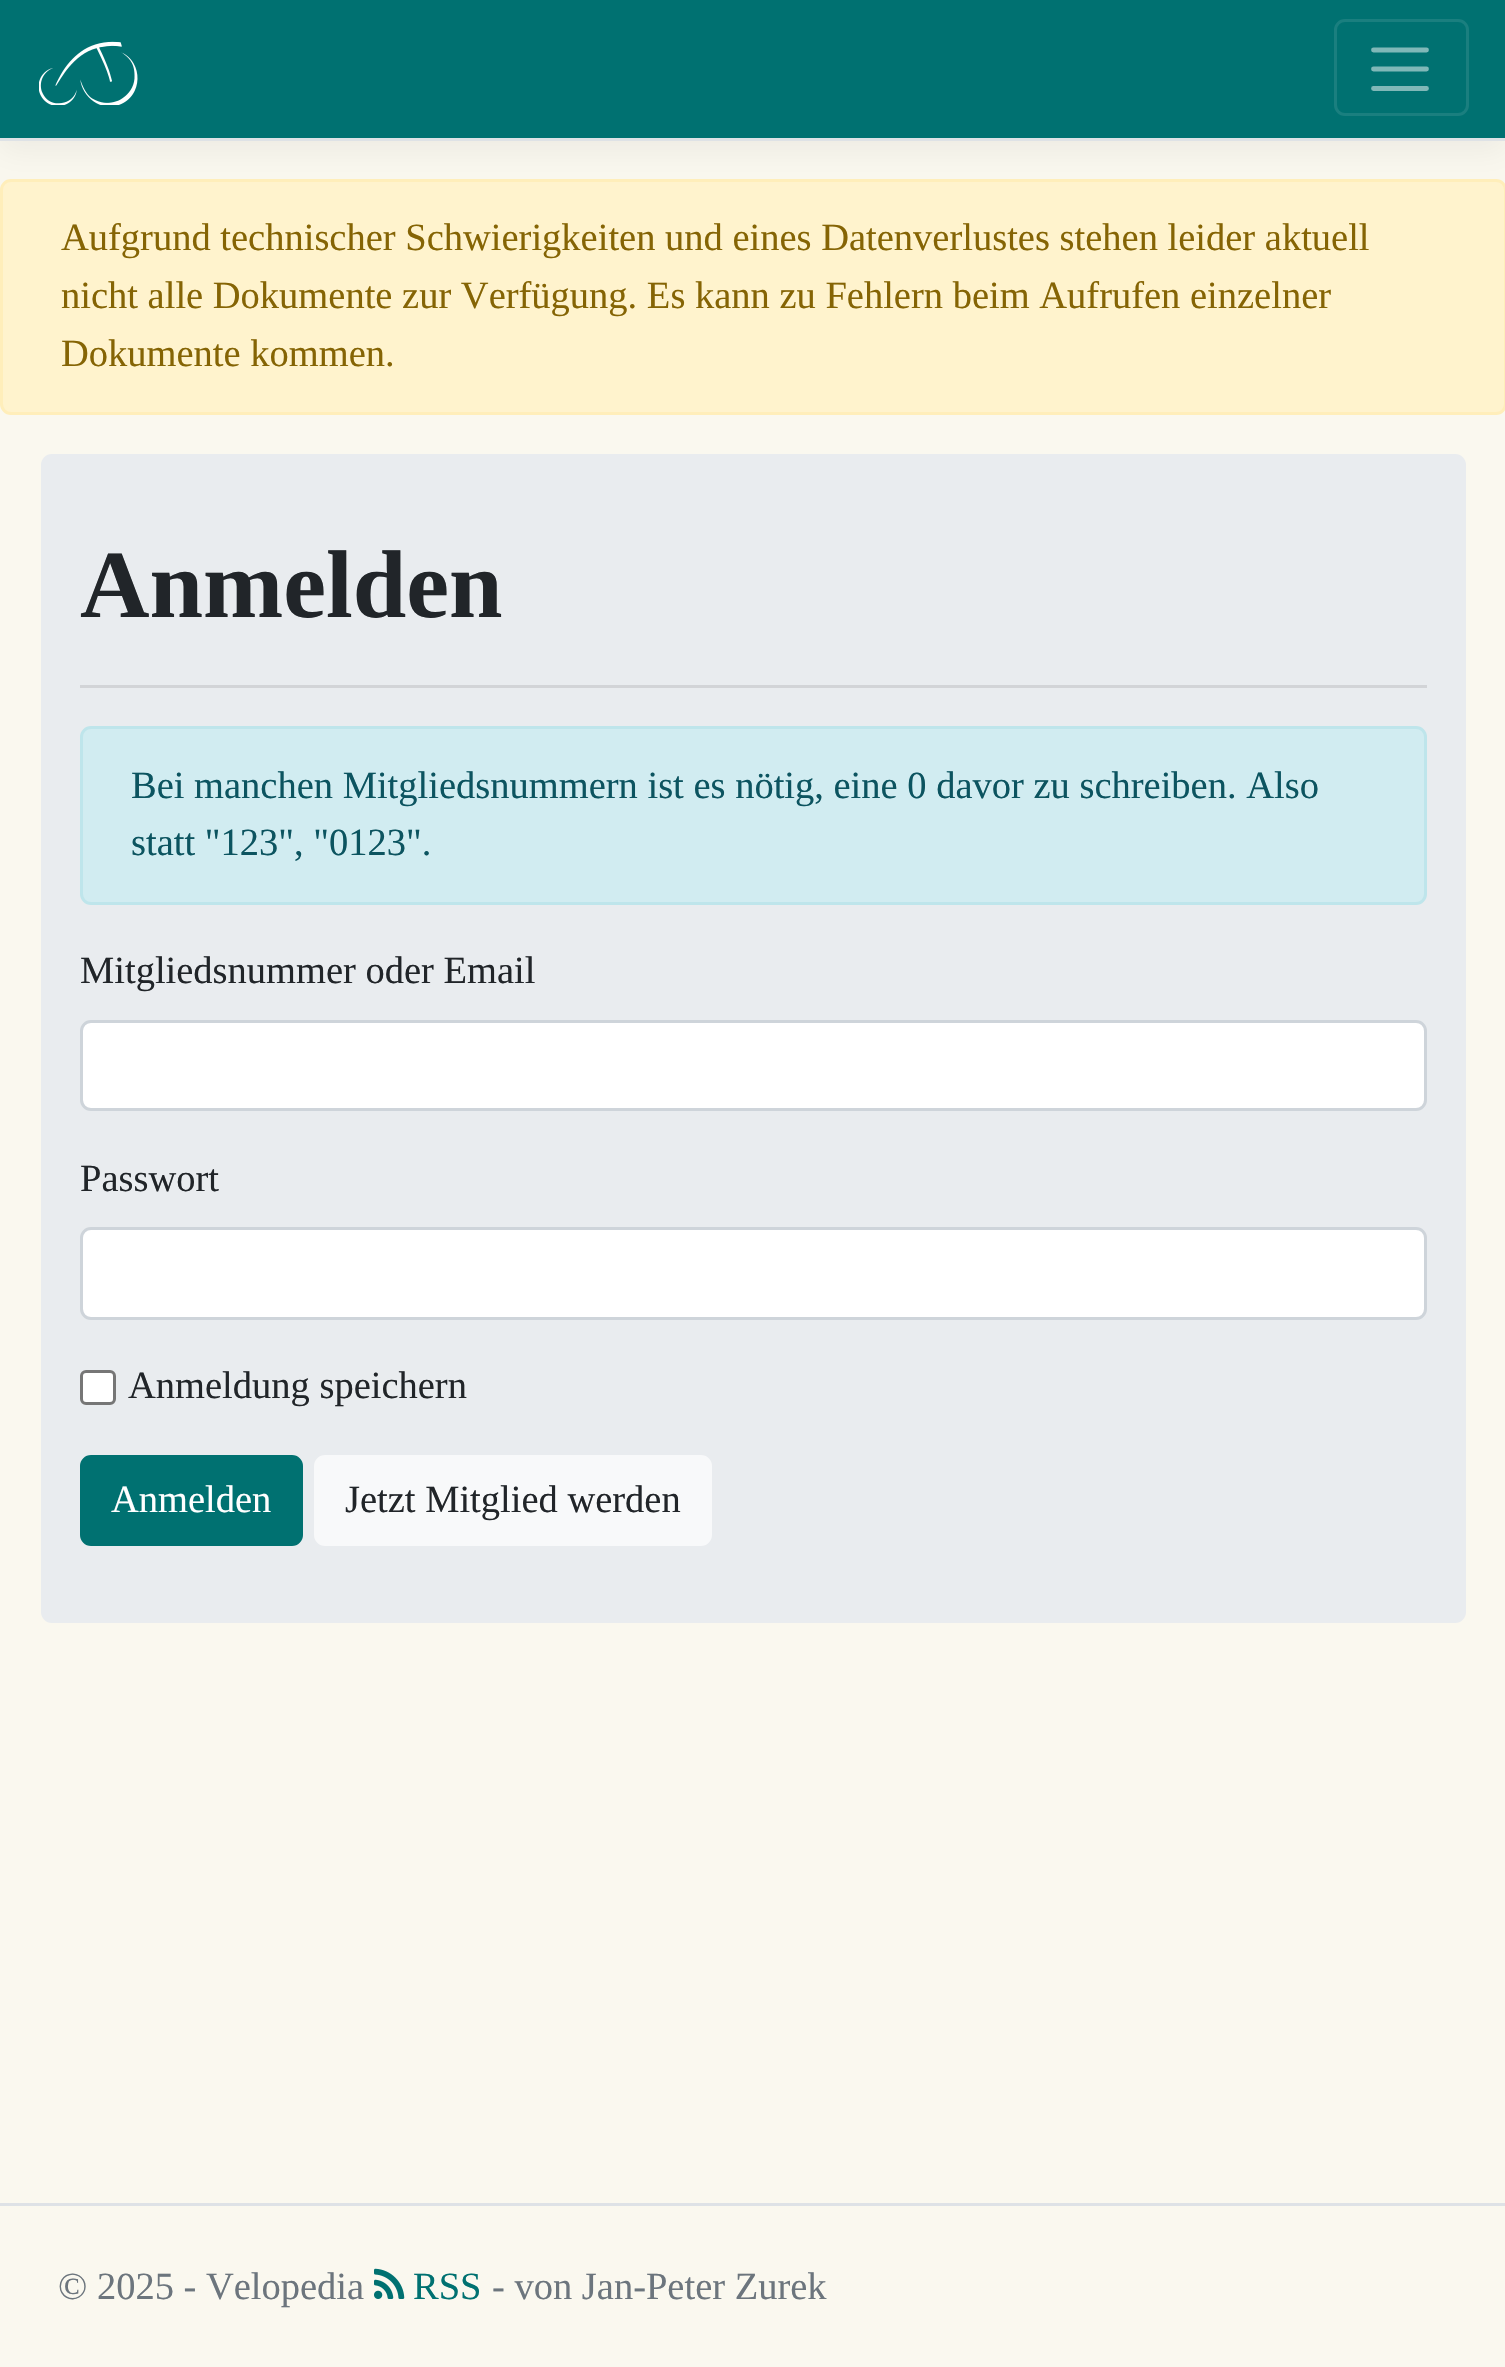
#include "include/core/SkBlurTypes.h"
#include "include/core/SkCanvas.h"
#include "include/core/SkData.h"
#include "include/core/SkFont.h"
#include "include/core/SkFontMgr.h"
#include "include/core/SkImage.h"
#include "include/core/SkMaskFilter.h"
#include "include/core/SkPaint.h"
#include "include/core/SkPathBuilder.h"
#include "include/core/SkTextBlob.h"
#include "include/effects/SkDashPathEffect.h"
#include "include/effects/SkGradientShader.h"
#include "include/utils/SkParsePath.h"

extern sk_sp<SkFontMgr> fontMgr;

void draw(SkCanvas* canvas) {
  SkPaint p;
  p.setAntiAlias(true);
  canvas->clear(SkColorSetRGB(250, 248, 239));
  p.setColor(SkColorSetARGB(13, 0, 0, 0));
  p.setMaskFilter(SkMaskFilter::MakeBlur(kNormal_SkBlurStyle, 14.5f));
  canvas->drawRect(SkRect::MakeLTRB(0, 11, 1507, 151), p);
  p.setMaskFilter(nullptr);
  p.setColor(SkColorSetRGB(0, 113, 113));
  canvas->drawRect(SkRect::MakeLTRB(0, 0, 1505, 138), p);
  p.setColor(SkColorSetRGB(222, 226, 230));
  canvas->drawRect(SkRect::MakeLTRB(0, 138, 1505, 141), p);
  canvas->drawImageRect(SkImages::DeferredFromEncodedData(SkData::MakeFromFileName("images/1.png")), SkRect::MakeLTRB(39, 41, 138, 105), SkSamplingOptions());
  p.setStyle(SkPaint::kStroke_Style);
  p.setStrokeWidth(3);
  p.setColor(SkColorSetRGB(26, 127, 127));
  canvas->drawRoundRect(SkRect::MakeLTRB(1335.5f, 20.5f, 1467.5f, 114.5f), 9.5f, 9.5f, p);
  p.setStrokeWidth(4.8f);
  p.setStrokeCap(SkPaint::kRound_Cap);
  p.setColor(SkColorSetRGB(128, 184, 184));
  canvas->drawPath(SkPathBuilder().moveTo(1373.5f, 50).lineTo(1426.5f, 50).moveTo(1373.5f, 69).lineTo(1426.5f, 69).moveTo(1373.5f, 88.5f).lineTo(1426.5f, 88.5f).detach(), p);
  p.setStyle(SkPaint::kFill_Style);
  p.setColor(SkColorSetRGB(255, 243, 205));
  canvas->drawRoundRect(SkRect::MakeLTRB(1.5f, 180.5f, 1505.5f, 413.5f), 9.5f, 9.5f, p);
  p.setStyle(SkPaint::kStroke_Style);
  p.setStrokeWidth(3);
  p.setStrokeCap(SkPaint::kButt_Cap);
  p.setColor(SkColorSetRGB(255, 238, 186));
  canvas->drawRoundRect(SkRect::MakeLTRB(1.5f, 180.5f, 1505.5f, 413.5f), 9.5f, 9.5f, p);
  p.setStyle(SkPaint::kFill_Style);
  p.setColor(SkColorSetRGB(233, 236, 239));
  canvas->drawRoundRect(SkRect::MakeLTRB(41, 454, 1466, 1623), 11, 11, p);
  p.setColor(SkColorSetRGB(210, 212, 215));
  canvas->drawRect(SkRect::MakeLTRB(80, 685, 1427, 688), p);
  p.setColor(SkColorSetRGB(209, 236, 241));
  canvas->drawRoundRect(SkRect::MakeLTRB(81.5f, 727.5f, 1425.5f, 903.5f), 9.5f, 9.5f, p);
  p.setStyle(SkPaint::kStroke_Style);
  p.setColor(SkColorSetRGB(190, 229, 235));
  canvas->drawRoundRect(SkRect::MakeLTRB(81.5f, 727.5f, 1425.5f, 903.5f), 9.5f, 9.5f, p);
  p.setStyle(SkPaint::kFill_Style);
  p.setColor(SK_ColorWHITE);
  canvas->drawRoundRect(SkRect::MakeLTRB(83, 1023, 1425, 1108), 7, 7, p);
  p.setStyle(SkPaint::kStroke_Style);
  p.setColor(SkColorSetRGB(206, 212, 218));
  canvas->drawRoundRect(SkRect::MakeLTRB(81.5f, 1021.5f, 1425.5f, 1109.5f), 9.5f, 9.5f, p);
  p.setStyle(SkPaint::kFill_Style);
  p.setColor(SK_ColorWHITE);
  canvas->drawRoundRect(SkRect::MakeLTRB(83, 1229, 1425, 1317), 7, 7, p);
  p.setStyle(SkPaint::kStroke_Style);
  p.setColor(SkColorSetRGB(206, 212, 218));
  canvas->drawRoundRect(SkRect::MakeLTRB(81.5f, 1228.5f, 1425.5f, 1318.5f), 9.5f, 9.5f, p);
  p.setStyle(SkPaint::kFill_Style);
  p.setColor(SK_ColorWHITE);
  canvas->drawRoundRect(SkRect::MakeLTRB(81.5f, 1371.5f, 114.5f, 1403.5f), 4.5f, 4.5f, p);
  p.setStyle(SkPaint::kStroke_Style);
  p.setColor(SkColorSetRGB(118, 118, 118));
  canvas->drawRoundRect(SkRect::MakeLTRB(81.5f, 1371.5f, 114.5f, 1403.5f), 4.5f, 4.5f, p);
  p.setStyle(SkPaint::kFill_Style);
  p.setColor(SkColorSetRGB(0, 113, 113));
  canvas->drawRoundRect(SkRect::MakeLTRB(81.5f, 1456.5f, 301.5f, 1544.5f), 9.5f, 9.5f, p);
  p.setStyle(SkPaint::kStroke_Style);
  canvas->drawRoundRect(SkRect::MakeLTRB(81.5f, 1456.5f, 301.5f, 1544.5f), 9.5f, 9.5f, p);
  p.setStyle(SkPaint::kFill_Style);
  p.setColor(SkColorSetRGB(248, 249, 250));
  canvas->drawRoundRect(SkRect::MakeLTRB(315.5f, 1456.5f, 710.5f, 1544.5f), 9.5f, 9.5f, p);
  p.setStyle(SkPaint::kStroke_Style);
  canvas->drawRoundRect(SkRect::MakeLTRB(315.5f, 1456.5f, 710.5f, 1544.5f), 9.5f, 9.5f, p);
  p.setStyle(SkPaint::kFill_Style);
  p.setColor(SkColorSetRGB(222, 226, 230));
  canvas->drawRect(SkRect::MakeLTRB(0, 2203, 1505, 2206), p);
  canvas->drawImageRect(SkImages::DeferredFromEncodedData(SkData::MakeFromFileName("images/2.png")), SkRect::MakeLTRB(374, 2268, 405, 2299), SkSamplingOptions());
  SkFont font1(fontMgr->matchFamilyStyle("Liberation Serif", SkFontStyle::Normal()), 38.5f);
  font1.setSubpixel(true);
  p.setColor(SkColorSetRGB(133, 100, 4));
  canvas->drawString("Aufgrund technischer Schwierigkeiten und eines Datenverlustes stehen leider aktuell", 61, 250, font1, p);
  canvas->drawString("nicht alle Dokumente zur Verfügung. Es kann zu Fehlern beim Aufrufen einzelner", 61, 308, font1, p);
  canvas->drawString("Dokumente kommen.", 61, 366, font1, p);
  SkFont font2(fontMgr->matchFamilyStyle("Liberation Serif", SkFontStyle::Bold()), 96.25f);
  font2.setSubpixel(true);
  p.setColor(SkColorSetRGB(33, 37, 41));
  canvas->drawString("Anmelden", 80, 617, font2, p);
  p.setColor(SkColorSetRGB(12, 84, 96));
  canvas->drawString("Bei manchen Mitgliedsnummern ist es nötig, eine 0 davor zu schreiben. Also", 131, 798, font1, p);
  canvas->drawString("statt \"123\", \"0123\".", 131, 855, font1, p);
  p.setColor(SkColorSetRGB(33, 37, 41));
  canvas->drawString("Mitgliedsnummer oder Email", 80, 983, font1, p);
  canvas->drawString("Passwort", 80, 1191, font1, p);
  canvas->drawString("Anmeldung speichern", 128, 1398, font1, p);
  p.setColor(SK_ColorWHITE);
  canvas->drawString("Anmelden", 111, 1512, font1, p);
  p.setColor(SkColorSetRGB(33, 37, 41));
  canvas->drawString("Jetzt Mitglied werden", 345, 1512, font1, p);
  p.setColor(SkColorSetRGB(108, 117, 125));
  canvas->drawString("© 2025 - Velopedia", 58, 2299, font1, p);
  p.setColor(SkColorSetRGB(0, 113, 113));
  canvas->drawString("RSS", 413, 2299, font1, p);
  p.setColor(SkColorSetRGB(108, 117, 125));
  canvas->drawString("- von Jan-Peter Zurek", 492, 2299, font1, p);
}
